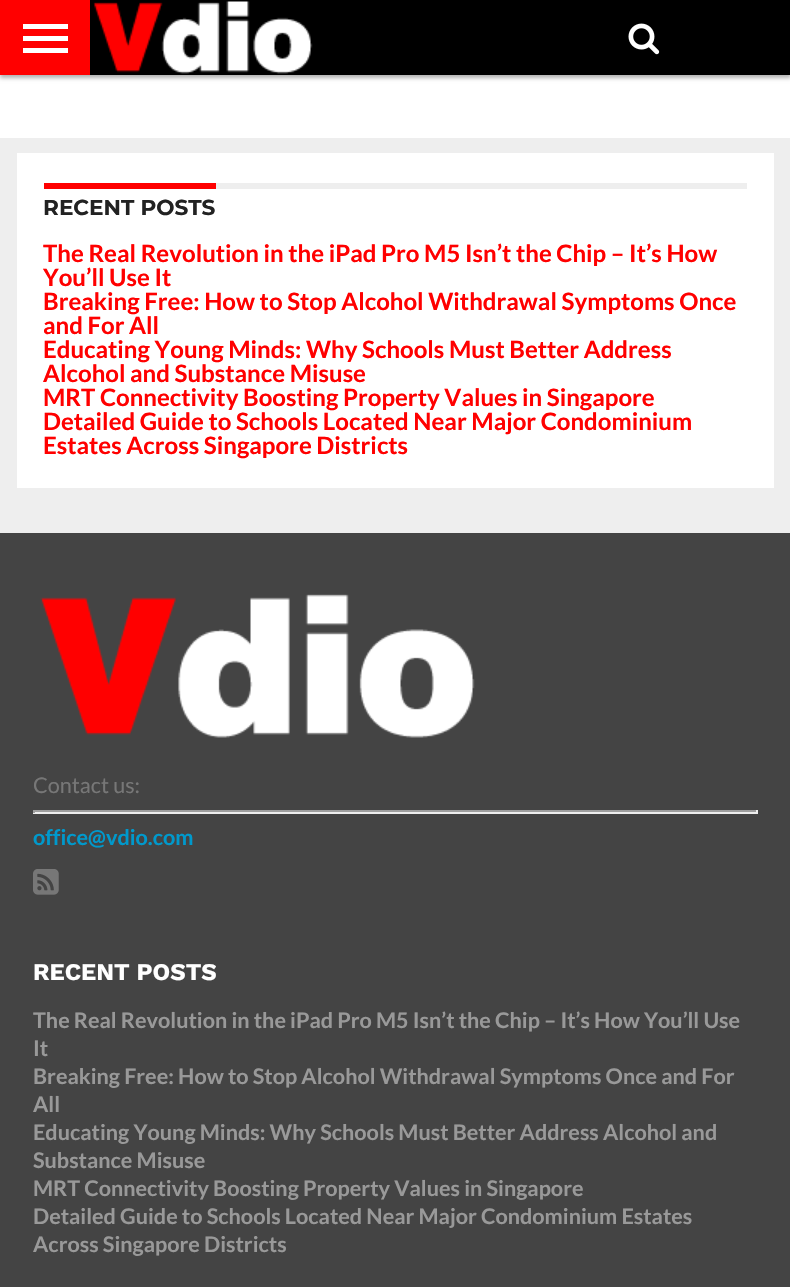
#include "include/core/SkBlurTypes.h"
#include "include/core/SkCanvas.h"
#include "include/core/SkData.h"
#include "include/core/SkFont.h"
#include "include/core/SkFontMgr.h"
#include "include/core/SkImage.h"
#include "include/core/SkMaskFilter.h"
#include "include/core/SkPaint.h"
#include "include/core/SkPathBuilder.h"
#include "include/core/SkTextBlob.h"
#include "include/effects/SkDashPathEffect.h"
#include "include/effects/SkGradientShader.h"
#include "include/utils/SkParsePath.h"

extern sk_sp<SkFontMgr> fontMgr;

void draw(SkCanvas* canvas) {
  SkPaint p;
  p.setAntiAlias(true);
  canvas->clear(SkColorSetRGB(238, 238, 238));
  p.setColor(SK_ColorWHITE);
  canvas->drawRect(SkRect::MakeLTRB(0, 75, 790, 138), p);
  p.setColor(SkColorSetARGB(77, 0, 0, 0));
  p.setMaskFilter(SkMaskFilter::MakeBlur(kNormal_SkBlurStyle, 2));
  canvas->drawRect(SkRect::MakeLTRB(0, 3, 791, 78), p);
  p.setMaskFilter(nullptr);
  p.setColor(SK_ColorBLACK);
  canvas->drawRect(SkRect::MakeLTRB(90, 0, 790, 75), p);
  p.setColor(SkColorSetRGB(255, 0, 0));
  canvas->drawRect(SkRect::MakeLTRB(0, 0, 90, 75), p);
  p.setColor(SK_ColorWHITE);
  canvas->drawRect(SkRect::MakeLTRB(23, 24, 68, 29), p);
  canvas->drawRect(SkRect::MakeLTRB(23, 36, 68, 41), p);
  canvas->drawRect(SkRect::MakeLTRB(23, 48, 68, 53), p);
  canvas->drawImageRect(SkImages::DeferredFromEncodedData(SkData::MakeFromFileName("images/1.png")), SkRect::MakeLTRB(93, 1, 313, 74), SkSamplingOptions());
  canvas->drawImageRect(SkImages::DeferredFromEncodedData(SkData::MakeFromFileName("images/2.png")), SkRect::MakeLTRB(628, 23, 660, 55), SkSamplingOptions());
  canvas->drawRect(SkRect::MakeLTRB(17, 153, 774, 488), p);
  p.setColor(SkColorSetRGB(238, 238, 238));
  canvas->drawRect(SkRect::MakeLTRB(216, 183, 747, 189), p);
  p.setColor(SkColorSetRGB(255, 0, 0));
  canvas->drawRect(SkRect::MakeLTRB(44, 183, 216, 189), p);
  p.setColor(SkColorSetRGB(68, 68, 68));
  canvas->drawRect(SkRect::MakeLTRB(0, 533, 790, 1287), p);
  canvas->drawImageRect(SkImages::DeferredFromEncodedData(SkData::MakeFromFileName("images/3.png")), SkRect::MakeLTRB(40, 594, 475, 738), SkSamplingOptions());
  p.setColor(SkColorSetRGB(159, 159, 159));
  canvas->drawRect(SkRect::MakeLTRB(33, 810, 758, 812), p);
  p.setColor(SkColorSetRGB(238, 238, 238));
  canvas->drawRect(SkRect::MakeLTRB(756, 810, 758, 813), p);
  canvas->drawRect(SkRect::MakeLTRB(33, 812, 758, 814), p);
  p.setColor(SkColorSetRGB(159, 159, 159));
  canvas->drawRect(SkRect::MakeLTRB(33, 810, 35, 813), p);
  canvas->drawImageRect(SkImages::DeferredFromEncodedData(SkData::MakeFromFileName("images/4.png")), SkRect::MakeLTRB(33, 869, 59, 895), SkSamplingOptions());
  SkFont font1(fontMgr->matchFamilyStyle("Montserrat", SkFontStyle::Bold()), 21.6f);
  font1.setSubpixel(true);
  p.setColor(SkColorSetRGB(34, 34, 34));
  canvas->drawString("RECENT POSTS", 43, 215, font1, p);
  SkFont font2(fontMgr->matchFamilyStyle("Lato", SkFontStyle::Bold()), 24);
  font2.setSubpixel(true);
  p.setColor(SkColorSetRGB(255, 0, 0));
  canvas->drawString("The Real Revolution in the iPad Pro M5 Isn’t the Chip – It’s How", 43, 262, font2, p);
  canvas->drawString("You’ll Use It", 43, 286, font2, p);
  canvas->drawString("Breaking Free: How to Stop Alcohol Withdrawal Symptoms Once", 43, 310, font2, p);
  canvas->drawString("and For All", 43, 334, font2, p);
  canvas->drawString("Educating Young Minds: Why Schools Must Better Address", 43, 358, font2, p);
  canvas->drawString("Alcohol and Substance Misuse", 43, 382, font2, p);
  canvas->drawString("MRT Connectivity Boosting Property Values in Singapore", 43, 406, font2, p);
  canvas->drawString("Detailed Guide to Schools Located Near Major Condominium", 43, 430, font2, p);
  canvas->drawString("Estates Across Singapore Districts", 43, 454, font2, p);
  SkFont font3(fontMgr->matchFamilyStyle("Lato", SkFontStyle::Normal()), 21.6f);
  font3.setSubpixel(true);
  p.setColor(SkColorSetRGB(119, 119, 119));
  canvas->drawString("Contact us:", 33, 793, font3, p);
  SkFont font4(fontMgr->matchFamilyStyle("Lato", SkFontStyle::Bold()), 21.6f);
  font4.setSubpixel(true);
  p.setColor(SkColorSetRGB(0, 153, 204));
  canvas->drawString("office@vdio.com", 33, 845, font4, p);
  SkFont font5(fontMgr->matchFamilyStyle("Work Sans", SkFontStyle::Bold()), 24);
  font5.setSubpixel(true);
  p.setColor(SK_ColorWHITE);
  canvas->drawString("RECENT POSTS", 33, 980, font5, p);
  p.setColor(SkColorSetRGB(153, 153, 153));
  canvas->drawString("The Real Revolution in the iPad Pro M5 Isn’t the Chip – It’s How You’ll Use", 33, 1028, font4, p);
  canvas->drawString("It", 33, 1056, font4, p);
  canvas->drawString("Breaking Free: How to Stop Alcohol Withdrawal Symptoms Once and For", 33, 1084, font4, p);
  canvas->drawString("All", 33, 1112, font4, p);
  canvas->drawString("Educating Young Minds: Why Schools Must Better Address Alcohol and", 33, 1140, font4, p);
  canvas->drawString("Substance Misuse", 33, 1168, font4, p);
  canvas->drawString("MRT Connectivity Boosting Property Values in Singapore", 33, 1196, font4, p);
  canvas->drawString("Detailed Guide to Schools Located Near Major Condominium Estates", 33, 1224, font4, p);
  canvas->drawString("Across Singapore Districts", 33, 1252, font4, p);
}
